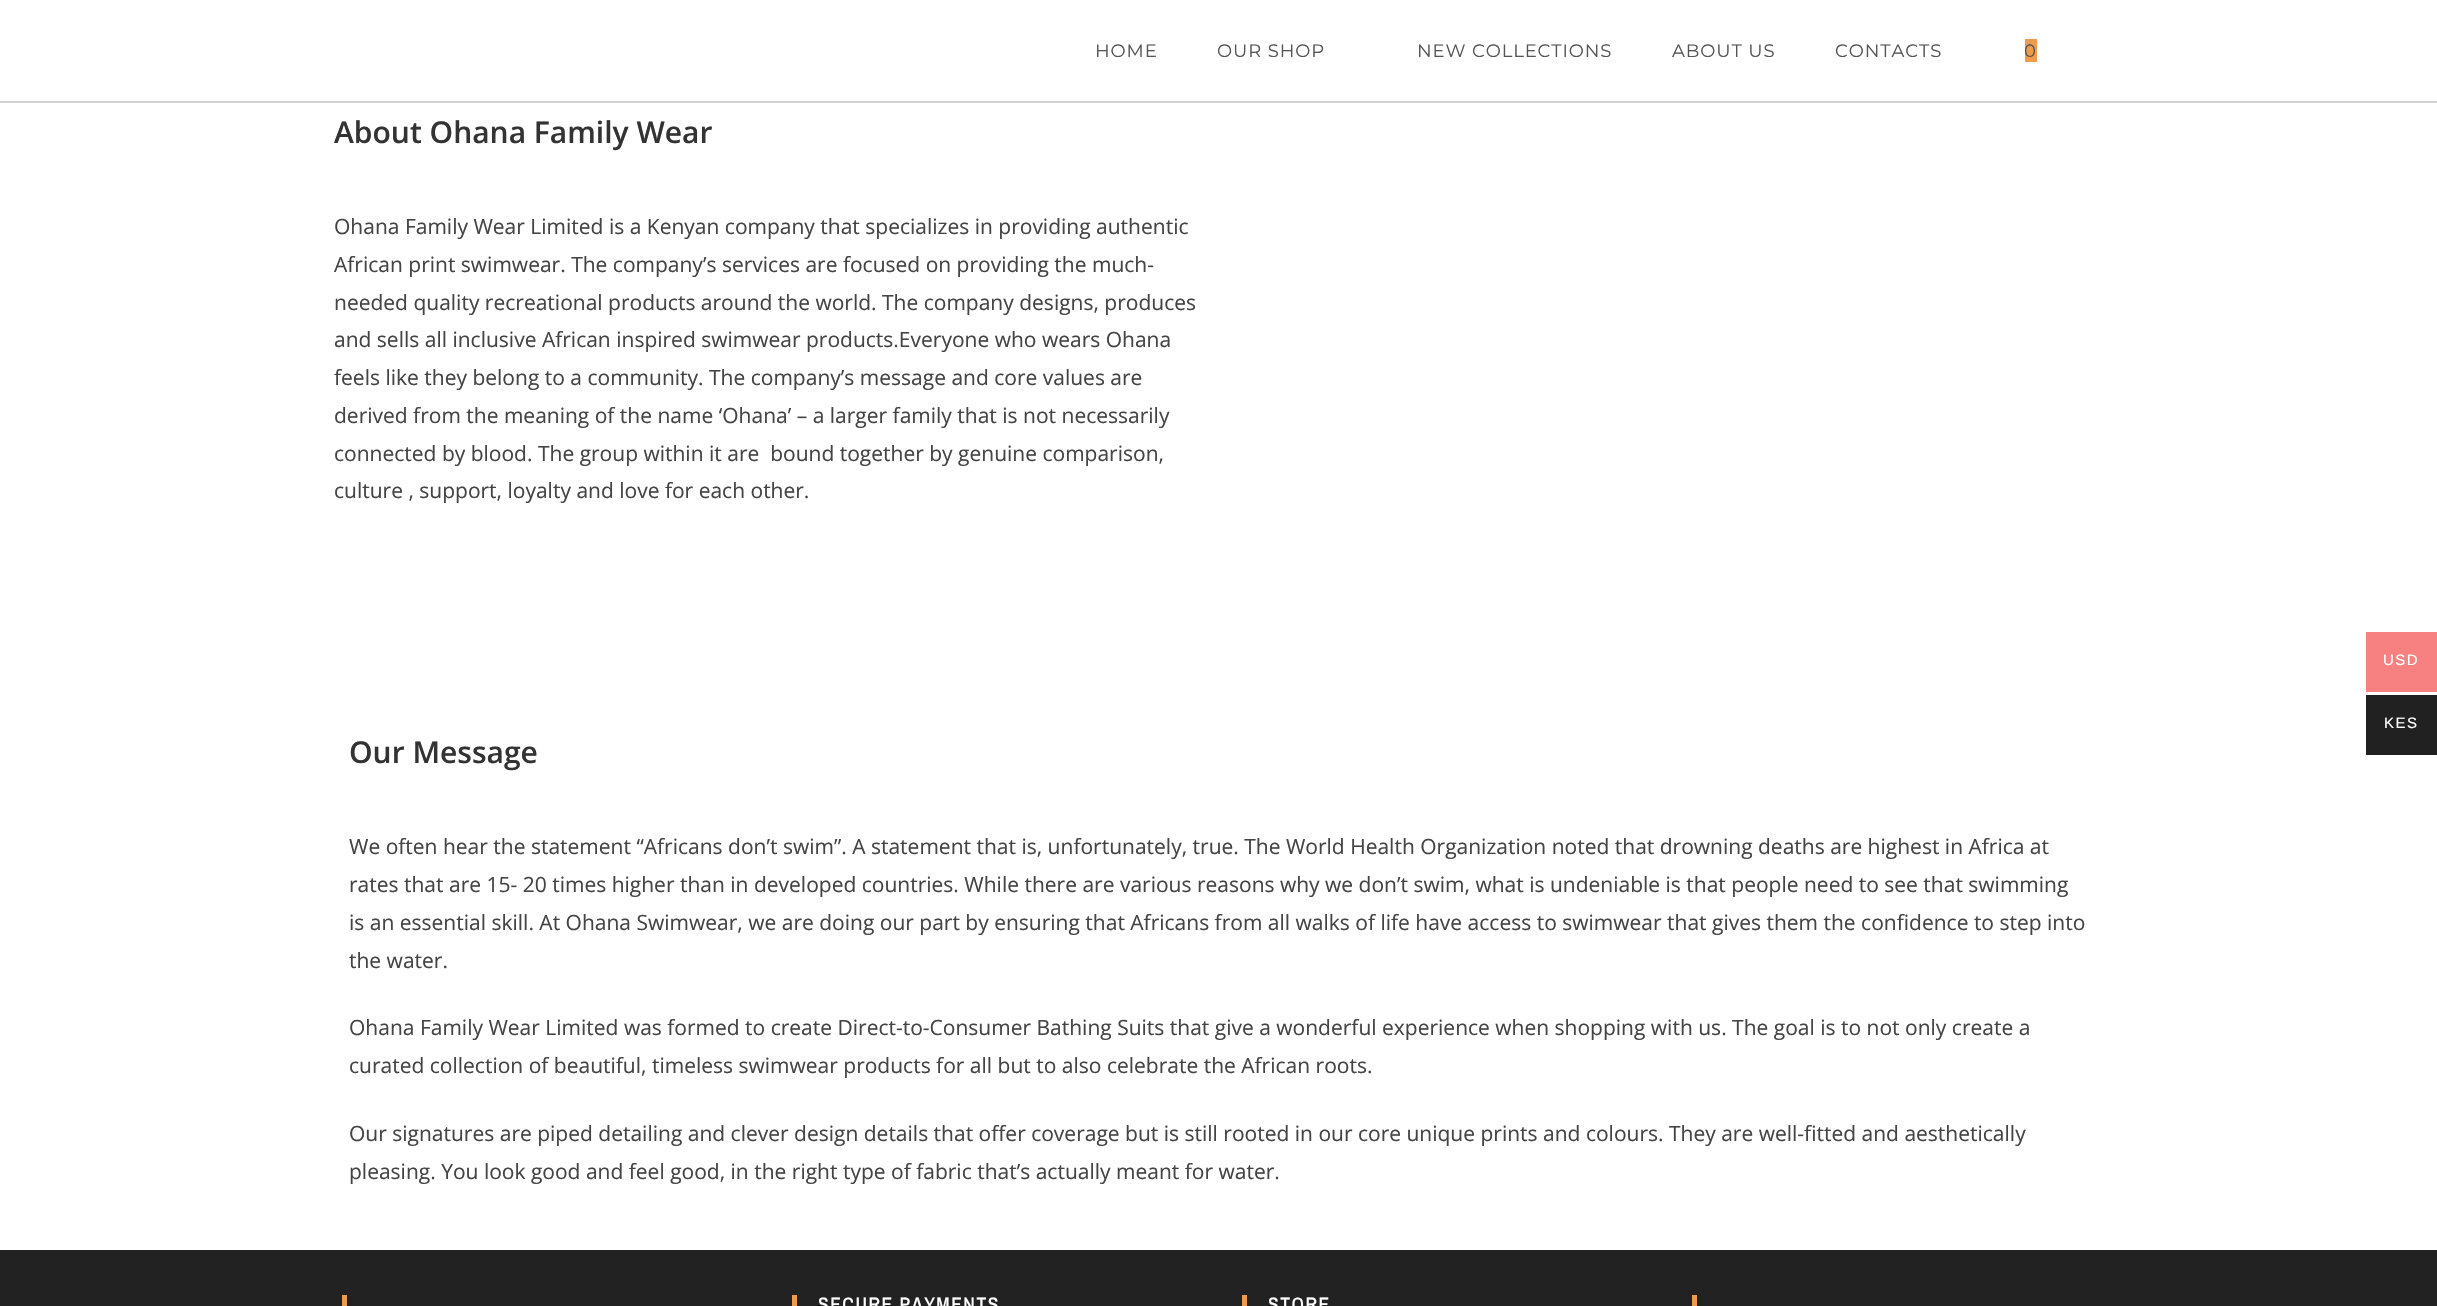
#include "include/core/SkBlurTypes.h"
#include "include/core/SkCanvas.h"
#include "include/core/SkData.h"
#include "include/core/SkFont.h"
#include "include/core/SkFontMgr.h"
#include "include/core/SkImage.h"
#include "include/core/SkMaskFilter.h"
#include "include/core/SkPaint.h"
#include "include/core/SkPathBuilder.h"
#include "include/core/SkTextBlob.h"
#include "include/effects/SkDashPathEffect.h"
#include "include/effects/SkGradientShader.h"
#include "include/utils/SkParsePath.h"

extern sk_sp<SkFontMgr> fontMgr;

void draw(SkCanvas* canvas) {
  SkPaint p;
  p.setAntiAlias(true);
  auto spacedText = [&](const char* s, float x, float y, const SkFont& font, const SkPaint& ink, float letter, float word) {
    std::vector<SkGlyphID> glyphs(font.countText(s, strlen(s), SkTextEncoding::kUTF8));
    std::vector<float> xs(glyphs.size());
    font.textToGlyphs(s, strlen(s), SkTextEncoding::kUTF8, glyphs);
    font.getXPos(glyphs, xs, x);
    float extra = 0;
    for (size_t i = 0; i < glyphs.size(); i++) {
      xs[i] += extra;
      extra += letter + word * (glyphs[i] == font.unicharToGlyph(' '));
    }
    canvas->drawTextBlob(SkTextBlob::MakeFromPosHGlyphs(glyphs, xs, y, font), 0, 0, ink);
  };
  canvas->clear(SK_ColorWHITE);
  p.setColor(SkColorSetRGB(210, 210, 210));
  canvas->drawRect(SkRect::MakeLTRB(0, 101, 2437, 103), p);
  p.setColor(SkColorSetRGB(239, 155, 76));
  canvas->drawRect(SkRect::MakeLTRB(2025, 39, 2037, 62), p);
  p.setColor(SkColorSetRGB(34, 34, 34));
  canvas->drawRect(SkRect::MakeLTRB(0, 1250, 2437, 1306), p);
  p.setColor(SkColorSetRGB(239, 155, 76));
  canvas->drawRect(SkRect::MakeLTRB(342, 1295, 347, 1306), p);
  canvas->drawRect(SkRect::MakeLTRB(792, 1295, 797, 1306), p);
  canvas->drawRect(SkRect::MakeLTRB(1242, 1295, 1247, 1306), p);
  canvas->drawRect(SkRect::MakeLTRB(1692, 1295, 1697, 1306), p);
  p.setColor(SkColorSetRGB(247, 128, 128));
  canvas->drawRect(SkRect::MakeLTRB(2366, 632, 2437, 692), p);
  p.setColor(SkColorSetRGB(33, 33, 33));
  canvas->drawRect(SkRect::MakeLTRB(2366, 695, 2437, 755), p);
  SkFont font1(fontMgr->matchFamilyStyle("Montserrat", SkFontStyle::Normal()), 18);
  font1.setSubpixel(true);
  p.setColor(SkColorSetRGB(85, 85, 85));
  spacedText("HOME", 1095, 57, font1, p, 0.9f, 0);
  spacedText("OUR SHOP", 1217, 57, font1, p, 0.9f, 0);
  spacedText("NEW COLLECTIONS", 1417, 57, font1, p, 0.9f, 0);
  spacedText("ABOUT US", 1672, 57, font1, p, 0.9f, 0);
  spacedText("CONTACTS", 1835, 57, font1, p, 0.9f, 0);
  spacedText("0", 2024, 57, font1, p, 0.9f, 0);
  SkFont font2(fontMgr->matchFamilyStyle("Open Sans", SkFontStyle(600, SkFontStyle::kNormal_Width, SkFontStyle::kUpright_Slant)), 30);
  font2.setSubpixel(true);
  p.setColor(SkColorSetRGB(51, 51, 51));
  canvas->drawString("About Ohana Family Wear", 334, 143, font2, p);
  SkFont font3(fontMgr->matchFamilyStyle("Open Sans", SkFontStyle::Normal()), 21);
  font3.setSubpixel(true);
  p.setColor(SkColorSetRGB(68, 68, 68));
  canvas->drawString("Ohana Family Wear Limited is a Kenyan company that specializes in providing authentic", 334, 234, font3, p);
  canvas->drawString("African print swimwear. The company’s services are focused on providing the much-", 334, 272, font3, p);
  canvas->drawString("needed quality recreational products around the world. The company designs, produces", 334, 310, font3, p);
  canvas->drawString("and sells all inclusive African inspired swimwear products.Everyone who wears Ohana", 334, 347, font3, p);
  canvas->drawString("feels like they belong to a community. The company’s message and core values are", 334, 385, font3, p);
  canvas->drawString("derived from the meaning of the name ‘Ohana’ – a larger family that is not necessarily", 334, 423, font3, p);
  canvas->drawString("connected by blood. The group within it are  bound together by genuine comparison,", 334, 461, font3, p);
  canvas->drawString("culture , support, loyalty and love for each other.", 334, 498, font3, p);
  p.setColor(SkColorSetRGB(51, 51, 51));
  canvas->drawString("Our Message", 349, 763, font2, p);
  p.setColor(SkColorSetRGB(68, 68, 68));
  canvas->drawString("We often hear the statement “Africans don’t swim”. A statement that is, unfortunately, true. The World Health Organization noted that drowning deaths are highest in Africa at", 349, 854, font3, p);
  canvas->drawString("rates that are 15- 20 times higher than in developed countries. While there are various reasons why we don’t swim, what is undeniable is that people need to see that swimming", 349, 892, font3, p);
  canvas->drawString("is an essential skill. At Ohana Swimwear, we are doing our part by ensuring that Africans from all walks of life have access to swimwear that gives them the confidence to step into", 349, 930, font3, p);
  canvas->drawString("the water.", 349, 968, font3, p);
  canvas->drawString("Ohana Family Wear Limited was formed to create Direct-to-Consumer Bathing Suits that give a wonderful experience when shopping with us. The goal is to not only create a", 349, 1035, font3, p);
  canvas->drawString("curated collection of beautiful, timeless swimwear products for all but to also celebrate the African roots.", 349, 1073, font3, p);
  canvas->drawString("Our signatures are piped detailing and clever design details that offer coverage but is still rooted in our core unique prints and colours. They are well-fitted and aesthetically", 349, 1141, font3, p);
  canvas->drawString("pleasing. You look good and feel good, in the right type of fabric that’s actually meant for water.", 349, 1179, font3, p);
  SkFont font4(fontMgr->matchFamilyStyle("Archivo Narrow", SkFontStyle(500, SkFontStyle::kNormal_Width, SkFontStyle::kUpright_Slant)), 19.5f);
  font4.setSubpixel(true);
  p.setColor(SK_ColorWHITE);
  spacedText("SECURE PAYMENTS", 818, 1311, font4, p, 1.5f, 0);
  spacedText("STORE", 1268, 1311, font4, p, 1.5f, 0);
  SkFont font5(fontMgr->matchFamilyStyle("Liberation Sans", SkFontStyle::Normal()), 15);
  font5.setSubpixel(true);
  spacedText("USD", 2383, 665, font5, p, 1.5f, 0);
  spacedText("KES", 2384, 728, font5, p, 1.5f, 0);
}
